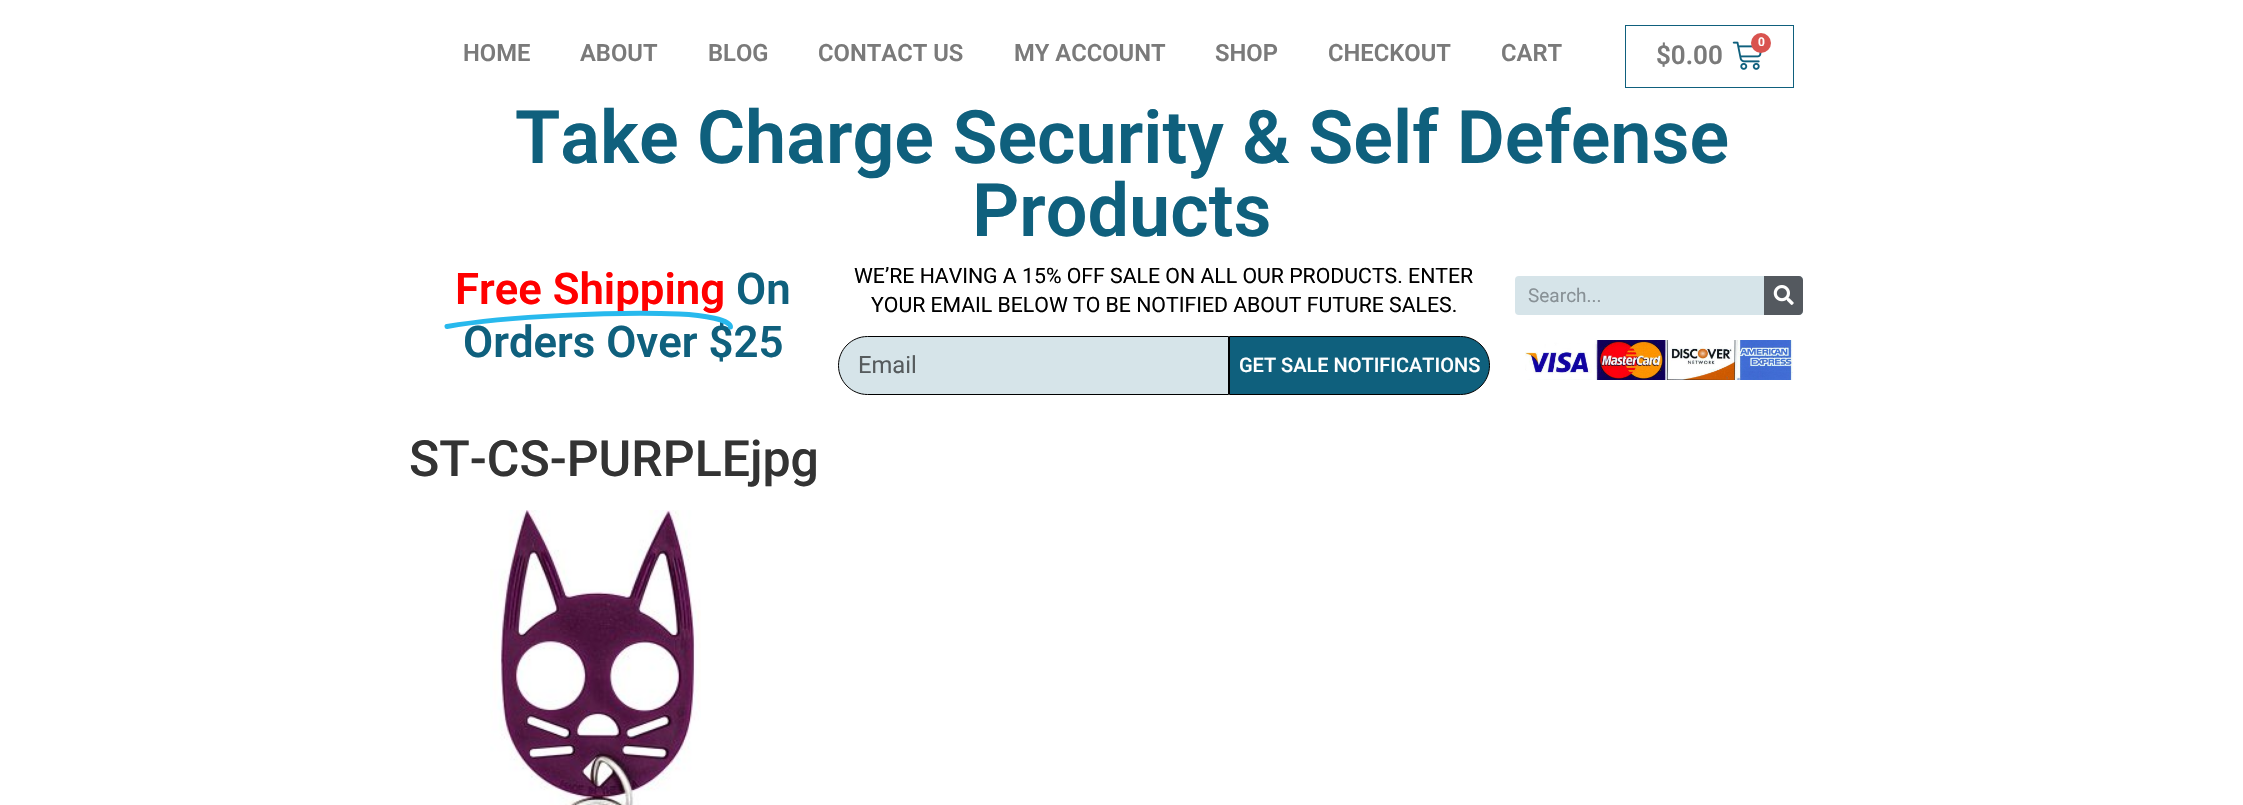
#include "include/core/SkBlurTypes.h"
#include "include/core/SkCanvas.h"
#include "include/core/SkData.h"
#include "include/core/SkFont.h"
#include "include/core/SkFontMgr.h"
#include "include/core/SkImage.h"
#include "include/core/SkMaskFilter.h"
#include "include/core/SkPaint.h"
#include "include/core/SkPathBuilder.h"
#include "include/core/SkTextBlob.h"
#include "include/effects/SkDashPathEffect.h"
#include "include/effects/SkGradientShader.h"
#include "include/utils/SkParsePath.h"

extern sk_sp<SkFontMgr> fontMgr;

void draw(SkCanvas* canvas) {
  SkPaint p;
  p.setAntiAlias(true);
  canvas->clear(SK_ColorWHITE);
  p.setStyle(SkPaint::kStroke_Style);
  p.setStrokeWidth(1);
  p.setColor(SkColorSetRGB(15, 96, 125));
  canvas->drawRect(SkRect::MakeLTRB(1625.5f, 25.5f, 1793.5f, 87.5f), p);
  canvas->drawImageRect(SkImages::DeferredFromEncodedData(SkData::MakeFromFileName("images/1.png")), SkRect::MakeLTRB(1732, 41, 1762, 70), SkSamplingOptions());
  p.setStyle(SkPaint::kFill_Style);
  p.setColor(SkColorSetRGB(217, 83, 79));
  canvas->drawCircle(1761, 43, 10, p);
  p.setColor(SkColorSetRGB(214, 228, 233));
  canvas->drawPath(SkPathBuilder().moveTo(867.5f, 336.5f).lineTo(1228.5f, 336.5f).lineTo(1228.5f, 394.5f).lineTo(867.5f, 394.5f).cubicTo(851.5f, 394.5f, 838.5f, 381.5f, 838.5f, 365.5f).cubicTo(838.5f, 349.5f, 851.5f, 336.5f, 867.5f, 336.5f).close().detach(), p);
  p.setStyle(SkPaint::kStroke_Style);
  p.setColor(SK_ColorBLACK);
  canvas->drawPath(SkPathBuilder().moveTo(867.5f, 336.5f).lineTo(1228.5f, 336.5f).lineTo(1228.5f, 394.5f).lineTo(867.5f, 394.5f).cubicTo(851.5f, 394.5f, 838.5f, 381.5f, 838.5f, 365.5f).cubicTo(838.5f, 349.5f, 851.5f, 336.5f, 867.5f, 336.5f).close().detach(), p);
  p.setStyle(SkPaint::kFill_Style);
  p.setColor(SkColorSetRGB(15, 96, 125));
  canvas->drawPath(SkPathBuilder().moveTo(1229.5f, 336.5f).lineTo(1460.5f, 336.5f).cubicTo(1476.5f, 336.5f, 1489.5f, 349.5f, 1489.5f, 365.5f).cubicTo(1489.5f, 381.5f, 1476.5f, 394.5f, 1460.5f, 394.5f).lineTo(1229.5f, 394.5f).close().detach(), p);
  p.setStyle(SkPaint::kStroke_Style);
  p.setColor(SK_ColorBLACK);
  canvas->drawPath(SkPathBuilder().moveTo(1229.5f, 336.5f).lineTo(1460.5f, 336.5f).cubicTo(1476.5f, 336.5f, 1489.5f, 349.5f, 1489.5f, 365.5f).cubicTo(1489.5f, 381.5f, 1476.5f, 394.5f, 1460.5f, 394.5f).lineTo(1229.5f, 394.5f).close().detach(), p);
  p.setStyle(SkPaint::kFill_Style);
  p.setColor(SkColorSetRGB(214, 228, 233));
  canvas->drawRoundRect(SkRect::MakeLTRB(1515, 276, 1803, 315), 4, 4, p);
  p.setColor(SkColorSetRGB(84, 89, 95));
  canvas->drawPath(SkPathBuilder().moveTo(1764, 276).lineTo(1799, 276).cubicTo(1801, 276, 1803, 278, 1803, 280).lineTo(1803, 311).cubicTo(1803, 313, 1801, 315, 1799, 315).lineTo(1764, 315).close().detach(), p);
  canvas->drawImageRect(SkImages::DeferredFromEncodedData(SkData::MakeFromFileName("images/2.png")), SkRect::MakeLTRB(1773, 285, 1794, 305), SkSamplingOptions());
  canvas->drawImageRect(SkImages::DeferredFromEncodedData(SkData::MakeFromFileName("images/3.png")), SkRect::MakeLTRB(1525, 340, 1793, 380), SkSamplingOptions());
  canvas->drawImageRect(SkImages::DeferredFromEncodedData(SkData::MakeFromFileName("images/4.png")), SkRect::MakeLTRB(490, 510, 701, 805), SkSamplingOptions());
  SkFont font1(fontMgr->matchFamilyStyle("Roboto", SkFontStyle(600, SkFontStyle::kNormal_Width, SkFontStyle::kUpright_Slant)), 23.75f);
  font1.setSubpixel(true);
  p.setColor(SkColorSetRGB(122, 122, 122));
  canvas->drawString("HOME", 463, 61, font1, p);
  canvas->drawString("ABOUT", 580, 61, font1, p);
  canvas->drawString("BLOG", 708, 61, font1, p);
  canvas->drawString("CONTACT US", 818, 61, font1, p);
  canvas->drawString("MY ACCOUNT", 1014, 61, font1, p);
  canvas->drawString("SHOP", 1215, 61, font1, p);
  canvas->drawString("CHECKOUT", 1328, 61, font1, p);
  canvas->drawString("CART", 1501, 61, font1, p);
  SkFont font2(fontMgr->matchFamilyStyle("Roboto", SkFontStyle(600, SkFontStyle::kNormal_Width, SkFontStyle::kUpright_Slant)), 26);
  font2.setSubpixel(true);
  canvas->drawString("$0.00", 1656, 64, font2, p);
  SkFont font3(fontMgr->matchFamilyStyle("Roboto", SkFontStyle(600, SkFontStyle::kNormal_Width, SkFontStyle::kUpright_Slant)), 12);
  font3.setSubpixel(true);
  p.setColor(SK_ColorWHITE);
  canvas->drawString("0", 1758, 46, font3, p);
  SkFont font4(fontMgr->matchFamilyStyle("Roboto", SkFontStyle(600, SkFontStyle::kNormal_Width, SkFontStyle::kUpright_Slant)), 73.75f);
  font4.setSubpixel(true);
  p.setColor(SkColorSetRGB(15, 96, 125));
  canvas->drawString("Take Charge Security & Self Defense", 515, 163, font4, p);
  canvas->drawString("Products", 972, 236, font4, p);
  SkFont font5(fontMgr->matchFamilyStyle("Roboto", SkFontStyle(600, SkFontStyle::kNormal_Width, SkFontStyle::kUpright_Slant)), 43.75f);
  font5.setSubpixel(true);
  p.setColor(SkColorSetRGB(255, 0, 0));
  canvas->drawString("Free Shipping", 455, 304, font5, p);
  p.setColor(SkColorSetRGB(15, 96, 125));
  canvas->drawString("On", 736, 304, font5, p);
  canvas->drawString("Orders Over $25", 463, 357, font5, p);
  p.setStyle(SkPaint::kStroke_Style);
  p.setStrokeWidth(5);
  p.setStrokeCap(SkPaint::kRound_Cap);
  p.setStrokeJoin(SkPaint::kRound_Join);
  p.setColor(SkColorSetRGB(40, 185, 237));
  canvas->drawPath(SkPathBuilder().moveTo(447, 326.5f).cubicTo(507, 316, 619.5f, 311.5f, 679, 314).cubicTo(704, 315, 731, 320, 730.5f, 327).detach(), p);
  SkFont font6(fontMgr->matchFamilyStyle("Roboto", SkFontStyle::Normal()), 21.25f);
  font6.setSubpixel(true);
  p.setStyle(SkPaint::kFill_Style);
  p.setColor(SK_ColorBLACK);
  canvas->drawString("WE’RE HAVING A 15% OFF SALE ON ALL OUR PRODUCTS. ENTER", 854, 283, font6, p);
  canvas->drawString("YOUR EMAIL BELOW TO BE NOTIFIED ABOUT FUTURE SALES.", 871, 312, font6, p);
  SkFont font7(fontMgr->matchFamilyStyle("Roboto", SkFontStyle::Normal()), 23.75f);
  font7.setSubpixel(true);
  p.setColor(SkColorSetRGB(86, 91, 93));
  canvas->drawString("Email", 858, 373, font7, p);
  SkFont font8(fontMgr->matchFamilyStyle("Roboto", SkFontStyle(500, SkFontStyle::kNormal_Width, SkFontStyle::kUpright_Slant)), 20);
  font8.setSubpixel(true);
  p.setColor(SK_ColorWHITE);
  canvas->drawString("GET SALE NOTIFICATIONS", 1239, 372, font8, p);
  SkFont font9(fontMgr->matchFamilyStyle("Roboto", SkFontStyle::Normal()), 19);
  font9.setSubpixel(true);
  p.setColor(SkColorSetRGB(136, 145, 150));
  canvas->drawString("Search...", 1528, 302, font9, p);
  SkFont font10(fontMgr->matchFamilyStyle("Roboto", SkFontStyle(500, SkFontStyle::kNormal_Width, SkFontStyle::kUpright_Slant)), 50);
  font10.setSubpixel(true);
  p.setColor(SkColorSetRGB(51, 51, 51));
  canvas->drawString("ST-CS-PURPLEjpg", 409, 476, font10, p);
}
